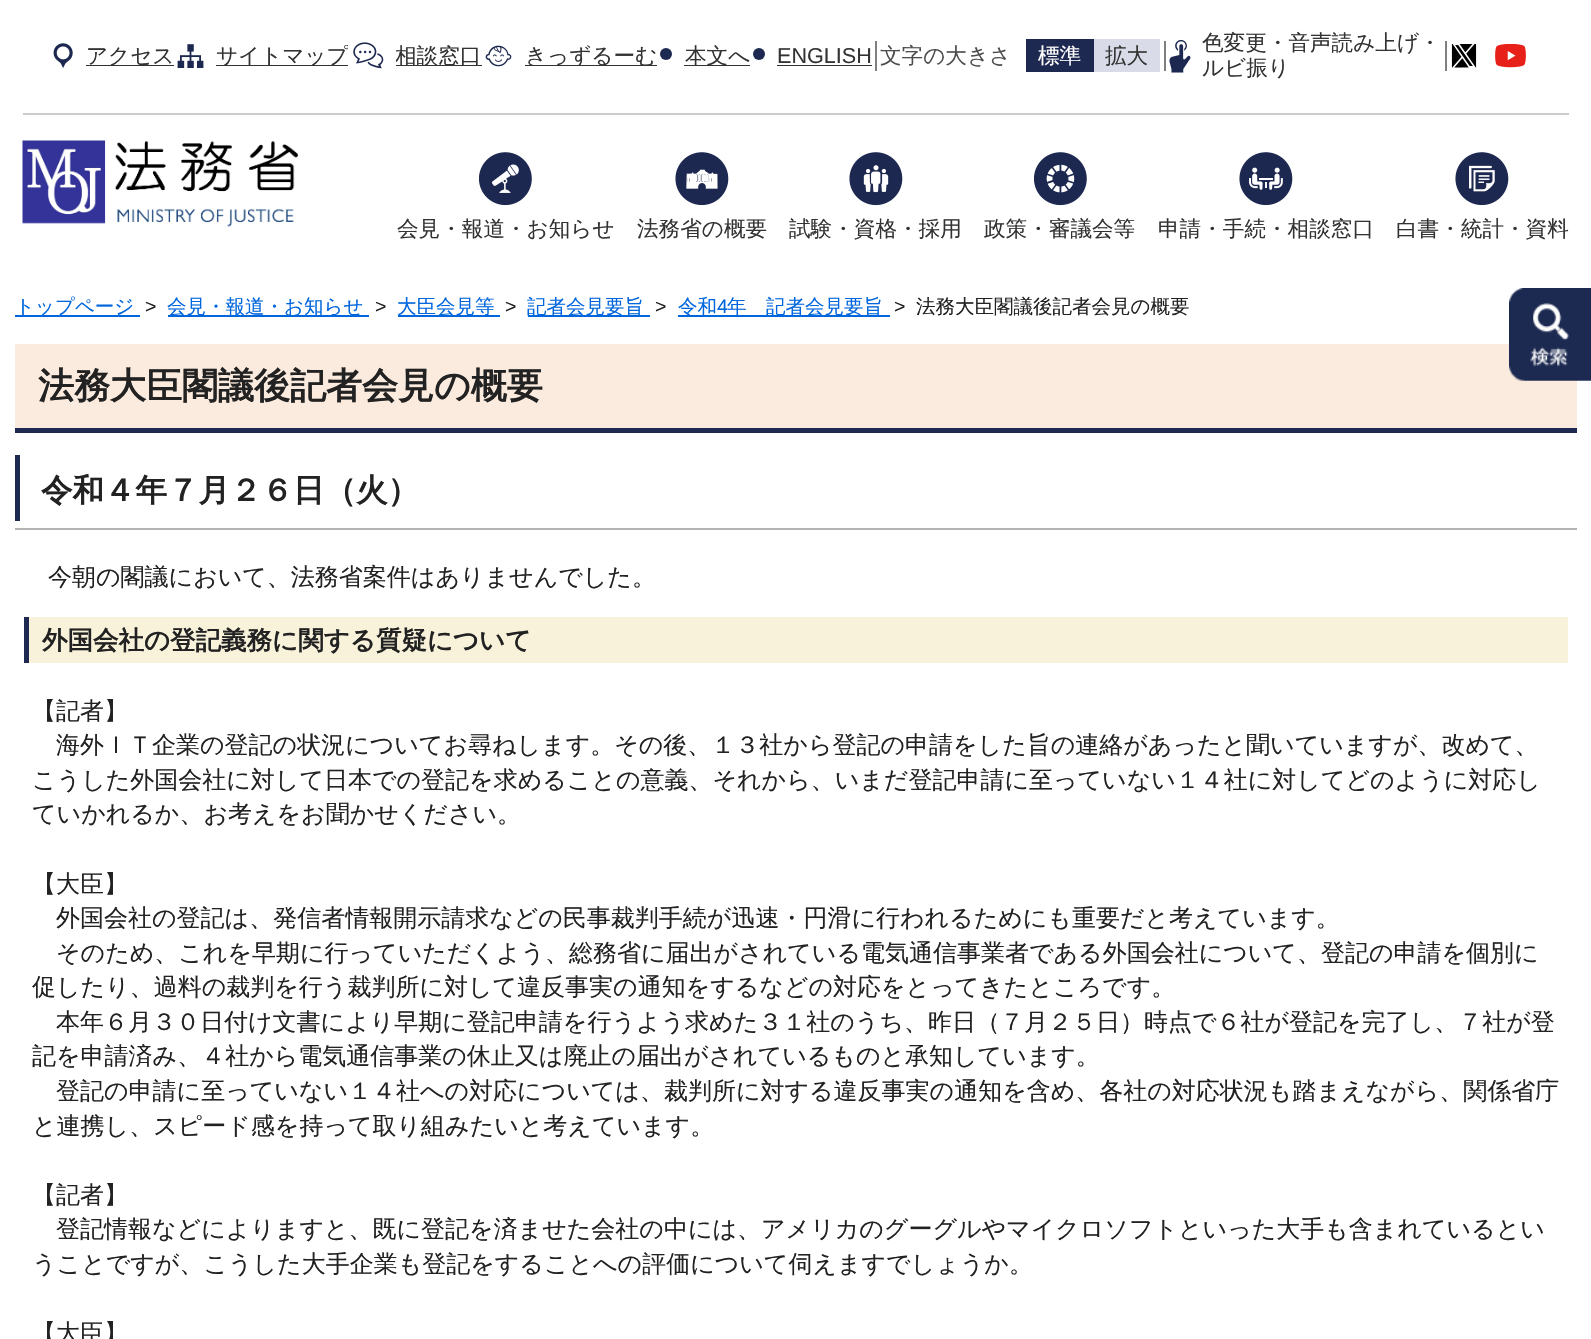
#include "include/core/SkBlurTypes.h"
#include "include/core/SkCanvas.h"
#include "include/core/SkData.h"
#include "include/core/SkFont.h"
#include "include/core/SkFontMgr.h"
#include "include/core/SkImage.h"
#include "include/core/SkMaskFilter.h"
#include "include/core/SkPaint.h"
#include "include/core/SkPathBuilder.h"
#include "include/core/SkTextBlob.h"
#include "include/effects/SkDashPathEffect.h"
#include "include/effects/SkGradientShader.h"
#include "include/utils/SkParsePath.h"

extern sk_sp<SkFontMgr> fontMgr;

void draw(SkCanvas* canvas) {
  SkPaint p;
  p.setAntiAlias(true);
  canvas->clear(SK_ColorWHITE);
  p.setColor(SkColorSetRGB(204, 204, 204));
  canvas->drawRect(SkRect::MakeLTRB(23, 113, 1569, 115), p);
  canvas->drawImageRect(SkImages::DeferredFromEncodedData(SkData::MakeFromFileName("images/1.png")), SkRect::MakeLTRB(53, 43, 73, 68), SkSamplingOptions());
  p.setColor(SkColorSetRGB(51, 51, 51));
  canvas->drawRect(SkRect::MakeLTRB(86, 65, 174, 66), p);
  canvas->drawImageRect(SkImages::DeferredFromEncodedData(SkData::MakeFromFileName("images/2.png")), SkRect::MakeLTRB(177, 44, 204, 69), SkSamplingOptions());
  canvas->drawRect(SkRect::MakeLTRB(216, 65, 348, 66), p);
  canvas->drawImageRect(SkImages::DeferredFromEncodedData(SkData::MakeFromFileName("images/3.png")), SkRect::MakeLTRB(353, 42, 384, 69), SkSamplingOptions());
  canvas->drawRect(SkRect::MakeLTRB(396, 65, 482, 66), p);
  canvas->drawImageRect(SkImages::DeferredFromEncodedData(SkData::MakeFromFileName("images/4.png")), SkRect::MakeLTRB(485, 45, 512, 67), SkSamplingOptions());
  canvas->drawRect(SkRect::MakeLTRB(525, 65, 657, 66), p);
  p.setColor(SkColorSetRGB(30, 41, 81));
  canvas->drawCircle(666, 54, 6, p);
  p.setColor(SkColorSetRGB(51, 51, 51));
  canvas->drawRect(SkRect::MakeLTRB(684, 65, 750, 66), p);
  p.setColor(SkColorSetRGB(30, 41, 81));
  canvas->drawCircle(759, 54, 6, p);
  p.setColor(SkColorSetRGB(51, 51, 51));
  canvas->drawRect(SkRect::MakeLTRB(777, 65, 872, 66), p);
  p.setColor(SkColorSetRGB(128, 128, 128));
  canvas->drawRect(SkRect::MakeLTRB(875, 41, 877, 71), p);
  p.setColor(SkColorSetRGB(30, 41, 81));
  canvas->drawRect(SkRect::MakeLTRB(1026, 39, 1094, 72), p);
  p.setColor(SkColorSetRGB(217, 220, 232));
  canvas->drawRect(SkRect::MakeLTRB(1094, 39, 1160, 72), p);
  p.setColor(SkColorSetRGB(128, 128, 128));
  canvas->drawRect(SkRect::MakeLTRB(1164, 41, 1166, 71), p);
  canvas->drawImageRect(SkImages::DeferredFromEncodedData(SkData::MakeFromFileName("images/5.png")), SkRect::MakeLTRB(1169, 40, 1191, 73), SkSamplingOptions());
  canvas->drawRect(SkRect::MakeLTRB(1445, 41, 1447, 71), p);
  canvas->drawImageRect(SkImages::DeferredFromEncodedData(SkData::MakeFromFileName("images/6.png")), SkRect::MakeLTRB(1451, 44, 1477, 68), SkSamplingOptions());
  canvas->drawImageRect(SkImages::DeferredFromEncodedData(SkData::MakeFromFileName("images/7.png")), SkRect::MakeLTRB(1495, 44, 1526, 68), SkSamplingOptions());
  canvas->drawImageRect(SkImages::DeferredFromEncodedData(SkData::MakeFromFileName("images/8.png")), SkRect::MakeLTRB(22, 140, 299, 227), SkSamplingOptions());
  canvas->drawImageRect(SkImages::DeferredFromEncodedData(SkData::MakeFromFileName("images/9.png")), SkRect::MakeLTRB(479, 152, 532, 206), SkSamplingOptions());
  canvas->drawImageRect(SkImages::DeferredFromEncodedData(SkData::MakeFromFileName("images/10.png")), SkRect::MakeLTRB(675, 152, 729, 206), SkSamplingOptions());
  canvas->drawImageRect(SkImages::DeferredFromEncodedData(SkData::MakeFromFileName("images/11.png")), SkRect::MakeLTRB(849, 152, 903, 206), SkSamplingOptions());
  canvas->drawImageRect(SkImages::DeferredFromEncodedData(SkData::MakeFromFileName("images/12.png")), SkRect::MakeLTRB(1034, 152, 1087, 206), SkSamplingOptions());
  canvas->drawImageRect(SkImages::DeferredFromEncodedData(SkData::MakeFromFileName("images/13.png")), SkRect::MakeLTRB(1239, 152, 1293, 206), SkSamplingOptions());
  canvas->drawImageRect(SkImages::DeferredFromEncodedData(SkData::MakeFromFileName("images/14.png")), SkRect::MakeLTRB(1455, 152, 1509, 206), SkSamplingOptions());
  p.setColor(SkColorSetRGB(251, 235, 222));
  canvas->drawRect(SkRect::MakeLTRB(15, 344, 1577, 428), p);
  canvas->drawImageRect(SkImages::DeferredFromEncodedData(SkData::MakeFromFileName("images/15.png")), SkRect::MakeLTRB(1509, 288, 1591, 381), SkSamplingOptions());
  p.setColor(SkColorSetRGB(0, 102, 221));
  canvas->drawRect(SkRect::MakeLTRB(15, 315, 140, 317), p);
  canvas->drawRect(SkRect::MakeLTRB(168, 315, 369, 317), p);
  canvas->drawRect(SkRect::MakeLTRB(398, 315, 500, 317), p);
  canvas->drawRect(SkRect::MakeLTRB(528, 315, 650, 317), p);
  canvas->drawRect(SkRect::MakeLTRB(678, 315, 890, 317), p);
  p.setColor(SkColorSetRGB(30, 41, 81));
  canvas->drawRect(SkRect::MakeLTRB(15, 428, 1577, 433), p);
  p.setColor(SkColorSetRGB(179, 179, 179));
  canvas->drawRect(SkRect::MakeLTRB(15, 528, 1577, 530), p);
  p.setColor(SkColorSetRGB(30, 41, 81));
  canvas->drawRect(SkRect::MakeLTRB(15, 455, 20, 521), p);
  p.setColor(SkColorSetRGB(249, 242, 219));
  canvas->drawRect(SkRect::MakeLTRB(29, 617, 1568, 663), p);
  p.setColor(SkColorSetRGB(30, 41, 81));
  canvas->drawRect(SkRect::MakeLTRB(24, 617, 29, 663), p);
  SkFont font1(fontMgr->matchFamilyStyle("WenQuanYi Zen Hei", SkFontStyle(500, SkFontStyle::kNormal_Width, SkFontStyle::kUpright_Slant)), 21.6f);
  font1.setSubpixel(true);
  p.setColor(SkColorSetRGB(51, 51, 51));
  canvas->drawString("アクセス", 86, 63, font1, p);
  canvas->save();
  canvas->clipRect(SkRect::MakeLTRB(216, 45, 348, 66));
  canvas->drawString("サイトマップ", 216, 63, font1, p);
  canvas->restore();
  canvas->save();
  canvas->clipRect(SkRect::MakeLTRB(396, 45, 482, 66));
  canvas->drawString("相談窓口", 395, 63, font1, p);
  canvas->restore();
  canvas->save();
  canvas->clipRect(SkRect::MakeLTRB(525, 45, 657, 66));
  canvas->drawString("きっずるーむ", 525, 63, font1, p);
  canvas->restore();
  canvas->drawString("本文へ", 685, 63, font1, p);
  SkFont font2(fontMgr->matchFamilyStyle("Liberation Sans", SkFontStyle::Normal()), 21.6f);
  font2.setSubpixel(true);
  canvas->drawString("ENGLISH", 777, 63, font2, p);
  p.setColor(SkColorSetRGB(77, 77, 77));
  canvas->drawString("文字の大きさ", 880, 63, font1, p);
  p.setColor(SK_ColorWHITE);
  canvas->drawString("標準", 1038, 63, font1, p);
  p.setColor(SkColorSetRGB(51, 51, 51));
  canvas->drawString("拡大", 1105, 63, font1, p);
  canvas->drawString("色変更・音声読み上げ・", 1202, 50, font1, p);
  canvas->drawString("ルビ振り", 1202, 75, font1, p);
  canvas->drawString("会見・報道・お知らせ", 397, 236, font1, p);
  canvas->drawString("法務省の概要", 637, 236, font1, p);
  canvas->drawString("試験・資格・採用", 789, 236, font1, p);
  canvas->drawString("政策・審議会等", 984, 236, font1, p);
  canvas->drawString("申請・手続・相談窓口", 1158, 236, font1, p);
  canvas->drawString("白書・統計・資料", 1396, 236, font1, p);
  SkFont font3(fontMgr->matchFamilyStyle("WenQuanYi Zen Hei", SkFontStyle(500, SkFontStyle::kNormal_Width, SkFontStyle::kUpright_Slant)), 19.5f);
  font3.setSubpixel(true);
  p.setColor(SkColorSetRGB(0, 102, 221));
  canvas->drawString("トップページ", 15, 313, font3, p);
  SkFont font4(fontMgr->matchFamilyStyle("Liberation Sans", SkFontStyle::Normal()), 19.5f);
  font4.setSubpixel(true);
  p.setColor(SkColorSetRGB(34, 34, 34));
  canvas->drawString(">", 145, 313, font4, p);
  p.setColor(SkColorSetRGB(0, 102, 221));
  canvas->drawString("会見・報道・お知らせ", 167, 313, font3, p);
  p.setColor(SkColorSetRGB(34, 34, 34));
  canvas->drawString(">", 375, 313, font4, p);
  p.setColor(SkColorSetRGB(0, 102, 221));
  canvas->drawString("大臣会見等", 397, 313, font3, p);
  p.setColor(SkColorSetRGB(34, 34, 34));
  canvas->drawString(">", 505, 313, font4, p);
  p.setColor(SkColorSetRGB(0, 102, 221));
  canvas->drawString("記者会見要旨", 527, 313, font3, p);
  p.setColor(SkColorSetRGB(34, 34, 34));
  canvas->drawString(">", 655, 313, font4, p);
  p.setColor(SkColorSetRGB(0, 102, 221));
  canvas->drawString("令和", 678, 313, font3, p);
  canvas->drawString("4", 717, 313, font4, p);
  canvas->drawString("年　記者会見要旨", 727, 313, font3, p);
  p.setColor(SkColorSetRGB(34, 34, 34));
  canvas->drawString(">", 894, 313, font4, p);
  canvas->drawString("法務大臣閣議後記者会見の概要", 916, 313, font3, p);
  SkFont font5(fontMgr->matchFamilyStyle("WenQuanYi Zen Hei", SkFontStyle::Bold()), 36);
  font5.setSubpixel(true);
  canvas->drawString("法務大臣閣議後記者会見の概要", 38, 398, font5, p);
  SkFont font6(fontMgr->matchFamilyStyle("WenQuanYi Zen Hei", SkFontStyle::Bold()), 31.5f);
  font6.setSubpixel(true);
  canvas->drawString("令和４年７月２６日（火）", 41, 501, font6, p);
  SkFont font7(fontMgr->matchFamilyStyle("WenQuanYi Zen Hei", SkFontStyle(500, SkFontStyle::kNormal_Width, SkFontStyle::kUpright_Slant)), 24);
  font7.setSubpixel(true);
  canvas->drawString("今朝の閣議において、法務省案件はありませんでした。", 48, 585, font7, p);
  SkFont font8(fontMgr->matchFamilyStyle("WenQuanYi Zen Hei", SkFontStyle::Bold()), 25.5f);
  font8.setSubpixel(true);
  canvas->drawString("外国会社の登記義務に関する質疑について", 42, 649, font8, p);
  canvas->drawString("【記者】", 32, 719, font7, p);
  canvas->drawString("海外ＩＴ企業の登記の状況についてお尋ねします。その後、１３社から登記の申請をした旨の連絡があったと聞いていますが、改めて、", 56, 753, font7, p);
  canvas->drawString("こうした外国会社に対して日本での登記を求めることの意義、それから、いまだ登記申請に至っていない１４社に対してどのように対応し", 32, 788, font7, p);
  canvas->drawString("ていかれるか、お考えをお聞かせください。", 32, 822, font7, p);
  canvas->drawString("【大臣】", 32, 892, font7, p);
  canvas->drawString("外国会社の登記は、発信者情報開示請求などの民事裁判手続が迅速・円滑に行われるためにも重要だと考えています。", 56, 926, font7, p);
  canvas->drawString("そのため、これを早期に行っていただくよう、総務省に届出がされている電気通信事業者である外国会社について、登記の申請を個別に", 56, 961, font7, p);
  canvas->drawString("促したり、過料の裁判を行う裁判所に対して違反事実の通知をするなどの対応をとってきたところです。", 32, 995, font7, p);
  canvas->drawString("本年６月３０日付け文書により早期に登記申請を行うよう求めた３１社のうち、昨日（７月２５日）時点で６社が登記を完了し、７社が登", 56, 1030, font7, p);
  canvas->drawString("記を申請済み、４社から電気通信事業の休止又は廃止の届出がされているものと承知しています。", 32, 1064, font7, p);
  canvas->drawString("登記の申請に至っていない１４社への対応については、裁判所に対する違反事実の通知を含め、各社の対応状況も踏まえながら、関係省庁", 56, 1099, font7, p);
  canvas->drawString("と連携し、スピード感を持って取り組みたいと考えています。", 32, 1134, font7, p);
  canvas->drawString("【記者】", 32, 1203, font7, p);
  canvas->drawString("登記情報などによりますと、既に登記を済ませた会社の中には、アメリカのグーグルやマイクロソフトといった大手も含まれているとい", 56, 1237, font7, p);
  canvas->drawString("うことですが、こうした大手企業も登記をすることへの評価について伺えますでしょうか。", 32, 1272, font7, p);
  canvas->drawString("【大臣】", 32, 1341, font7, p);
}
